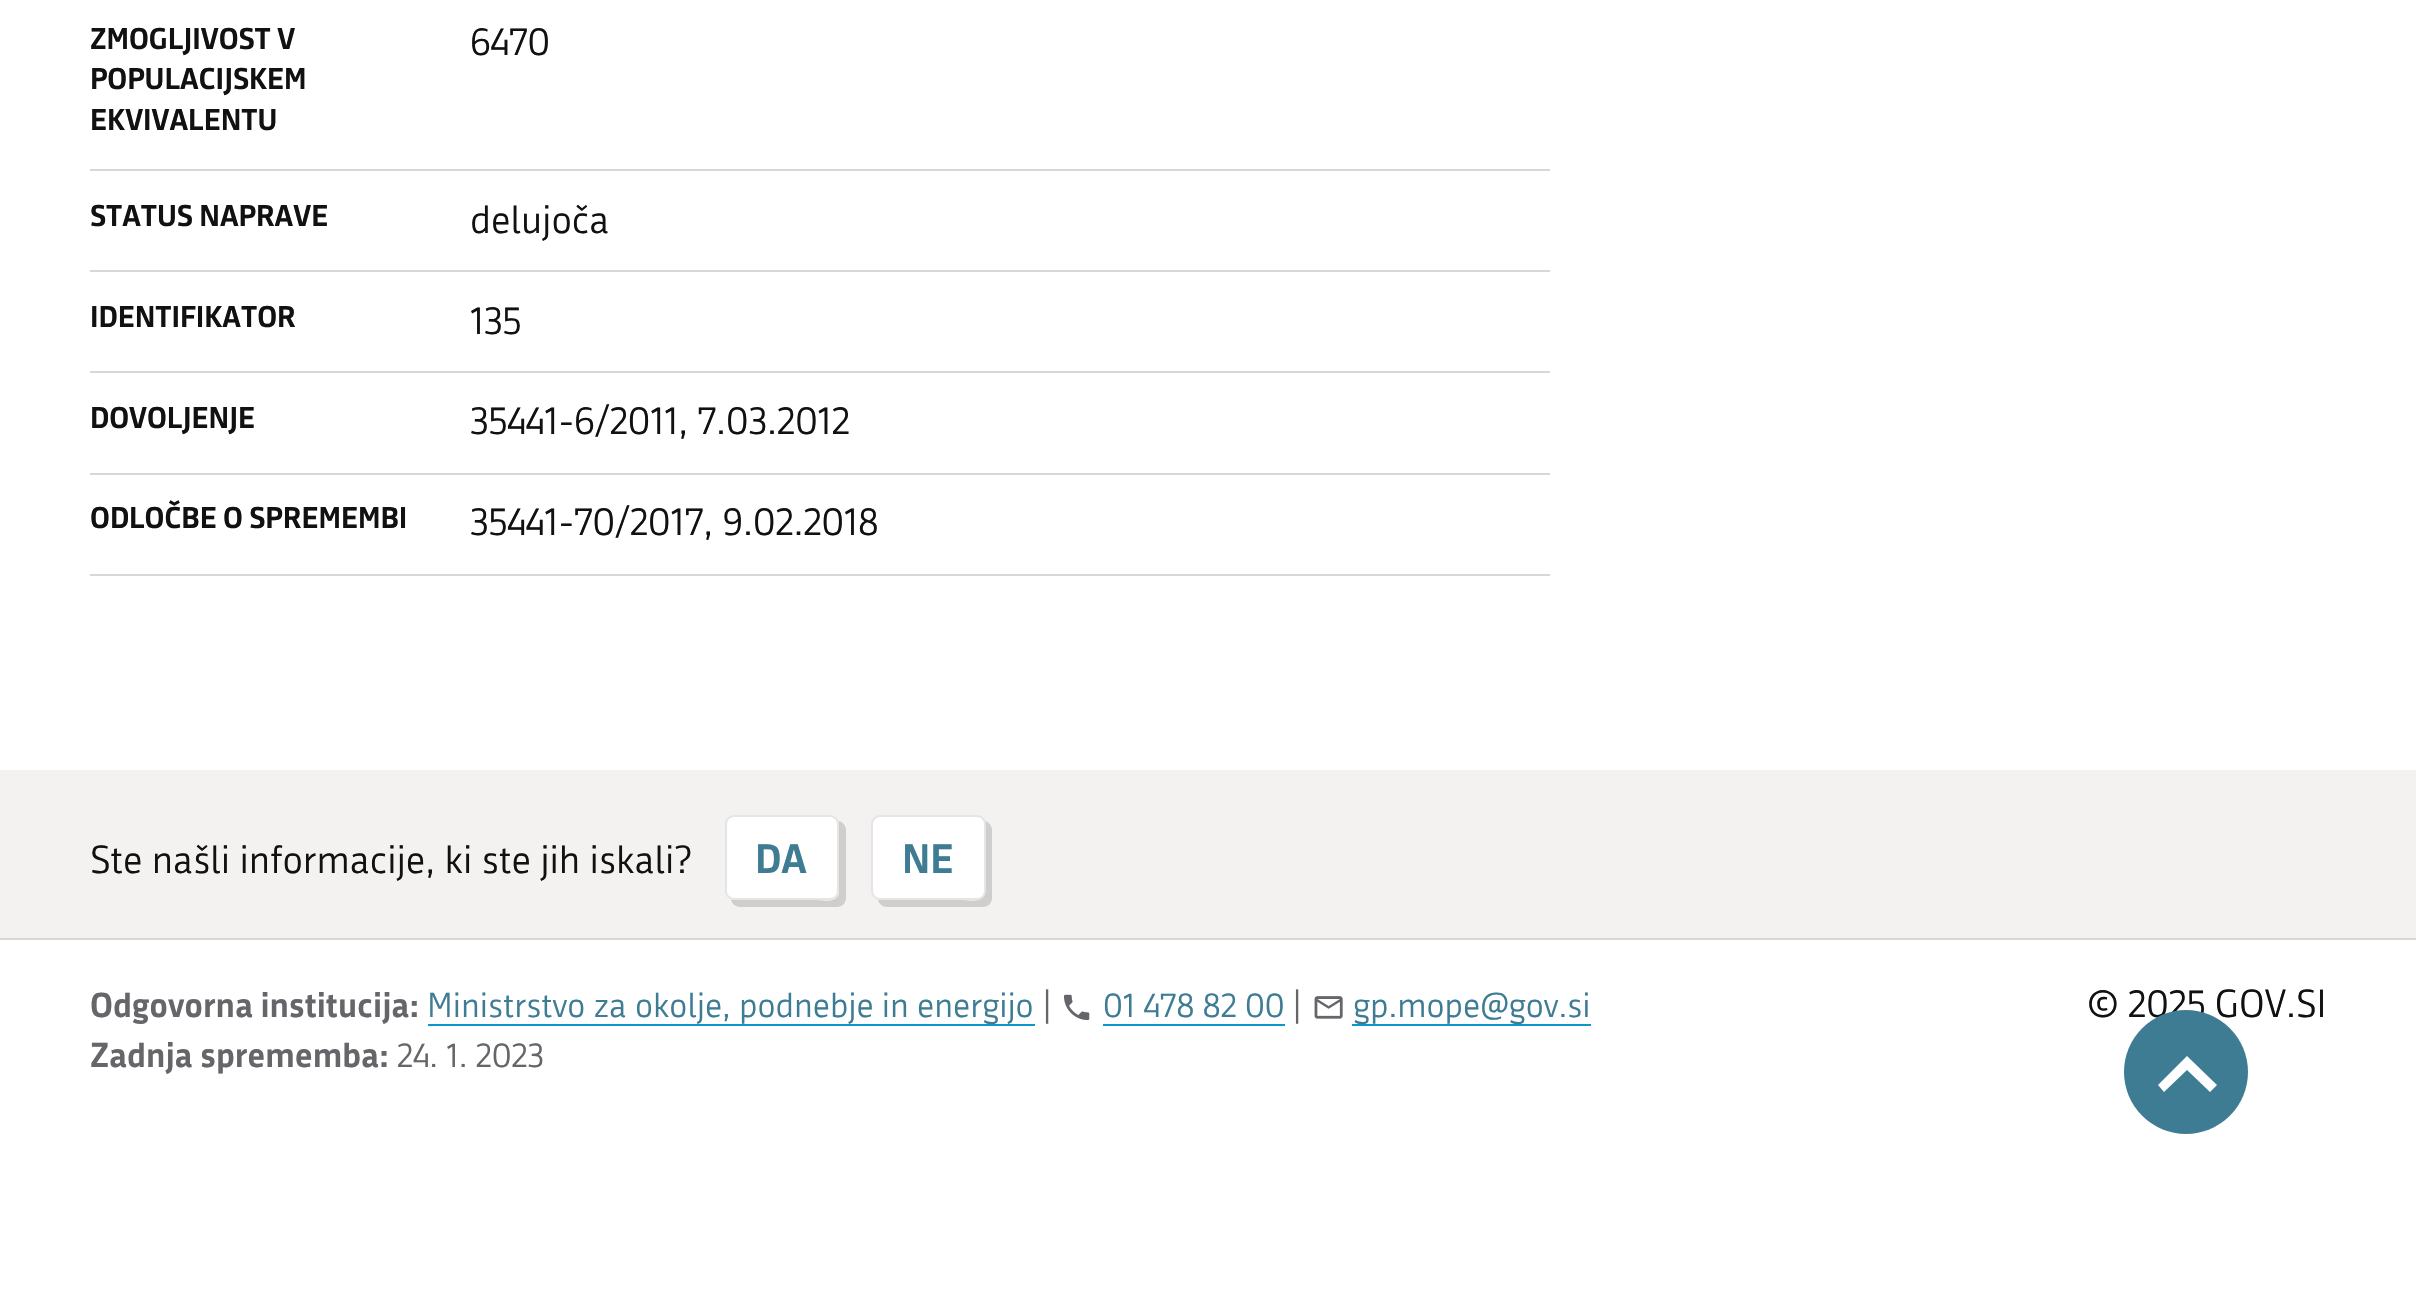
#include "include/core/SkBlurTypes.h"
#include "include/core/SkCanvas.h"
#include "include/core/SkData.h"
#include "include/core/SkFont.h"
#include "include/core/SkFontMgr.h"
#include "include/core/SkImage.h"
#include "include/core/SkMaskFilter.h"
#include "include/core/SkPaint.h"
#include "include/core/SkPathBuilder.h"
#include "include/core/SkTextBlob.h"
#include "include/effects/SkDashPathEffect.h"
#include "include/effects/SkGradientShader.h"
#include "include/utils/SkParsePath.h"

extern sk_sp<SkFontMgr> fontMgr;

void draw(SkCanvas* canvas) {
  SkPaint p;
  p.setAntiAlias(true);
  canvas->clear(SK_ColorWHITE);
  p.setColor(SkColorSetRGB(215, 215, 215));
  canvas->drawRect(SkRect::MakeLTRB(90, 169, 1550, 171), p);
  canvas->drawRect(SkRect::MakeLTRB(90, 270, 1550, 272), p);
  canvas->drawRect(SkRect::MakeLTRB(90, 371, 1550, 373), p);
  canvas->drawRect(SkRect::MakeLTRB(90, 473, 1550, 475), p);
  canvas->drawRect(SkRect::MakeLTRB(90, 574, 1550, 576), p);
  p.setColor(SkColorSetRGB(243, 242, 240));
  canvas->drawRect(SkRect::MakeLTRB(0, 770, 2416, 938), p);
  p.setColor(SkColorSetRGB(207, 206, 204));
  canvas->drawPath(SkPathBuilder().moveTo(731, 900).cubicTo(732, 904, 736, 907, 740, 907).lineTo(837, 907).cubicTo(842, 907, 846, 903, 846, 898).lineTo(846, 830).cubicTo(846, 826, 843, 822, 839, 821).lineTo(839, 893).cubicTo(837, 904, 821, 900, 814, 900).close().detach(), p);
  p.setColor(SK_ColorWHITE);
  canvas->drawRoundRect(SkRect::MakeLTRB(725, 815, 839, 900), 9, 9, p);
  p.setStyle(SkPaint::kStroke_Style);
  p.setStrokeWidth(2);
  p.setColor(SkColorSetARGB(26, 0, 0, 0));
  canvas->drawRoundRect(SkRect::MakeLTRB(726, 816, 838, 899), 8, 8, p);
  p.setStyle(SkPaint::kFill_Style);
  p.setColor(SkColorSetRGB(207, 206, 204));
  canvas->drawPath(SkPathBuilder().moveTo(878, 900).cubicTo(879, 904, 883, 907, 887, 907).lineTo(983, 907).cubicTo(988, 907, 992, 903, 992, 898).lineTo(992, 830).cubicTo(992, 826, 989, 822, 985, 821).lineTo(985, 893).cubicTo(983, 904, 967, 900, 960, 900).close().detach(), p);
  p.setColor(SK_ColorWHITE);
  canvas->drawRoundRect(SkRect::MakeLTRB(871, 815, 986, 900), 9, 9, p);
  p.setStyle(SkPaint::kStroke_Style);
  p.setColor(SkColorSetARGB(26, 0, 0, 0));
  canvas->drawRoundRect(SkRect::MakeLTRB(872, 816, 985, 899), 8, 8, p);
  p.setStyle(SkPaint::kFill_Style);
  p.setColor(SkColorSetRGB(215, 215, 215));
  canvas->drawRect(SkRect::MakeLTRB(0, 938, 2416, 940), p);
  p.setColor(SkColorSetRGB(13, 150, 202));
  canvas->drawRect(SkRect::MakeLTRB(428, 1024, 1035, 1026), p);
  canvas->drawImageRect(SkImages::DeferredFromEncodedData(SkData::MakeFromFileName("images/1.png")), SkRect::MakeLTRB(1064, 994, 1090, 1021), SkSamplingOptions());
  canvas->drawRect(SkRect::MakeLTRB(1103, 1024, 1285, 1026), p);
  canvas->drawImageRect(SkImages::DeferredFromEncodedData(SkData::MakeFromFileName("images/2.png")), SkRect::MakeLTRB(1314, 996, 1343, 1019), SkSamplingOptions());
  canvas->drawRect(SkRect::MakeLTRB(1352, 1024, 1591, 1026), p);
  SkFont font1(fontMgr->matchFamilyStyle("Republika", SkFontStyle::Bold()), 29.25f);
  font1.setSubpixel(true);
  p.setColor(SkColorSetRGB(17, 17, 17));
  canvas->drawString("ZMOGLJIVOST V", 90, 49, font1, p);
  canvas->drawString("POPULACIJSKEM", 90, 89, font1, p);
  canvas->drawString("EKVIVALENTU", 90, 130, font1, p);
  SkFont font2(fontMgr->matchFamilyStyle("Republika", SkFontStyle::Normal()), 38.25f);
  font2.setSubpixel(true);
  canvas->drawString("6470", 470, 55, font2, p);
  canvas->drawString("STATUS NAPRAVE", 90, 226, font1, p);
  canvas->drawString("delujoča", 470, 233, font2, p);
  canvas->drawString("IDENTIFIKATOR", 90, 327, font1, p);
  canvas->drawString("135", 470, 334, font2, p);
  canvas->drawString("DOVOLJENJE", 90, 428, font1, p);
  canvas->drawString("35441-6/2011, 7.03.2012", 470, 434, font2, p);
  canvas->drawString("ODLOČBE O SPREMEMBI", 90, 528, font1, p);
  canvas->drawString("35441-70/2017, 9.02.2018", 470, 535, font2, p);
  canvas->drawString("Ste našli informacije, ki ste jih iskali?", 90, 873, font2, p);
  SkFont font3(fontMgr->matchFamilyStyle("Republika", SkFontStyle::Bold()), 40);
  font3.setSubpixel(true);
  p.setColor(SkColorSetRGB(62, 124, 148));
  canvas->drawString("DA", 755, 873, font3, p);
  canvas->drawString("NE", 902, 873, font3, p);
  SkFont font4(fontMgr->matchFamilyStyle("Republika", SkFontStyle::Bold()), 33.75f);
  font4.setSubpixel(true);
  p.setColor(SkColorSetRGB(101, 101, 106));
  canvas->drawString("Odgovorna institucija:", 90, 1017, font4, p);
  SkFont font5(fontMgr->matchFamilyStyle("Republika", SkFontStyle::Normal()), 33.75f);
  font5.setSubpixel(true);
  p.setColor(SkColorSetRGB(62, 124, 148));
  canvas->drawString("Ministrstvo za okolje, podnebje in energijo", 427, 1017, font5, p);
  p.setColor(SkColorSetRGB(101, 101, 106));
  canvas->drawString("|", 1042, 1017, font5, p);
  p.setColor(SkColorSetRGB(62, 124, 148));
  canvas->drawString("01 478 82 00", 1103, 1017, font5, p);
  p.setColor(SkColorSetRGB(101, 101, 106));
  canvas->drawString("|", 1292, 1017, font5, p);
  p.setColor(SkColorSetRGB(62, 124, 148));
  canvas->drawString("gp.mope@gov.si", 1353, 1017, font5, p);
  p.setColor(SkColorSetRGB(101, 101, 106));
  canvas->drawString("Zadnja sprememba:", 90, 1067, font4, p);
  canvas->drawString("24. 1. 2023", 397, 1067, font5, p);
  p.setColor(SkColorSetRGB(17, 17, 17));
  canvas->drawString("© 2025 GOV.SI", 2087, 1017, font2, p);
  p.setColor(SkColorSetRGB(62, 124, 148));
  canvas->drawCircle(2186, 1072, 62, p);
  p.setColor(SK_ColorWHITE);
  canvas->drawPath(SkPathBuilder().moveTo(2164, 1092).lineTo(2158, 1085).lineTo(2187, 1056).lineTo(2217, 1085).lineTo(2210, 1092).lineTo(2187, 1070).close().detach(), p);
}
